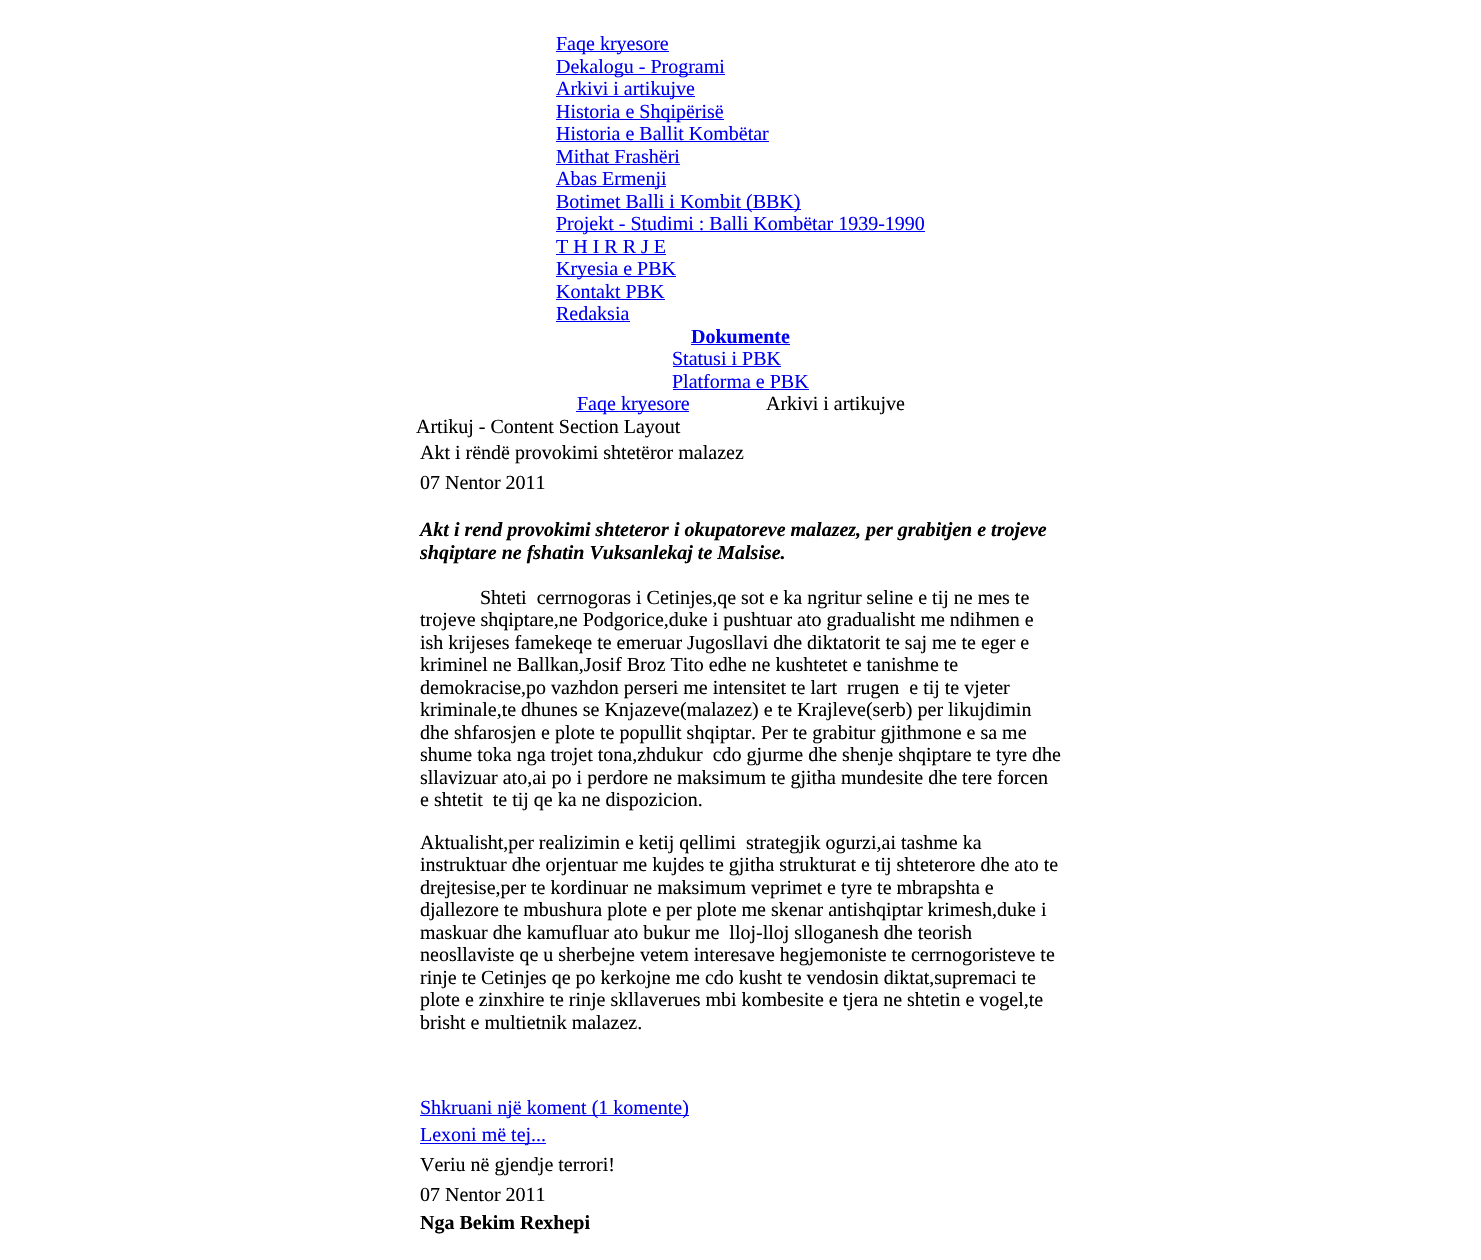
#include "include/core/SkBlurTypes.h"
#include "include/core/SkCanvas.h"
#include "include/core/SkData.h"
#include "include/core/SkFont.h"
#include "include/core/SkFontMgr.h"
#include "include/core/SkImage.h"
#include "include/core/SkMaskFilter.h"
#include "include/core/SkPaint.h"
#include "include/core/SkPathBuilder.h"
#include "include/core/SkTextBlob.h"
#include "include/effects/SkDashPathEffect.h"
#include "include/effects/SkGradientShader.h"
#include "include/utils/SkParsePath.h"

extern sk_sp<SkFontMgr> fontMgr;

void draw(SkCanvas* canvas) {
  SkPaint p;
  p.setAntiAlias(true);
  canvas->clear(SK_ColorWHITE);
  p.setColor(SkColorSetRGB(0, 0, 238));
  canvas->drawRect(SkRect::MakeLTRB(556, 51, 669, 52), p);
  canvas->drawRect(SkRect::MakeLTRB(556, 74, 725, 75), p);
  canvas->drawRect(SkRect::MakeLTRB(556, 96, 695, 97), p);
  canvas->drawRect(SkRect::MakeLTRB(556, 119, 724, 120), p);
  canvas->drawRect(SkRect::MakeLTRB(556, 141, 769, 142), p);
  canvas->drawRect(SkRect::MakeLTRB(556, 164, 680, 165), p);
  canvas->drawRect(SkRect::MakeLTRB(556, 186, 666, 187), p);
  canvas->drawRect(SkRect::MakeLTRB(556, 209, 801, 210), p);
  canvas->drawRect(SkRect::MakeLTRB(556, 231, 925, 232), p);
  canvas->drawRect(SkRect::MakeLTRB(556, 254, 666, 255), p);
  canvas->drawRect(SkRect::MakeLTRB(556, 276, 676, 277), p);
  canvas->drawRect(SkRect::MakeLTRB(556, 299, 665, 300), p);
  canvas->drawRect(SkRect::MakeLTRB(556, 321, 630, 322), p);
  canvas->drawRect(SkRect::MakeLTRB(691, 344, 790, 345), p);
  canvas->drawRect(SkRect::MakeLTRB(673, 366, 781, 367), p);
  canvas->drawRect(SkRect::MakeLTRB(673, 389, 809, 390), p);
  canvas->drawRect(SkRect::MakeLTRB(576, 411, 689, 412), p);
  canvas->drawRect(SkRect::MakeLTRB(420, 1115, 689, 1116), p);
  canvas->drawRect(SkRect::MakeLTRB(420, 1143, 546, 1144), p);
  SkFont font1(fontMgr->matchFamilyStyle("Liberation Serif", SkFontStyle::Normal()), 20);
  font1.setSubpixel(true);
  canvas->drawString("Faqe kryesore", 556, 50, font1, p);
  canvas->drawString("Dekalogu - Programi", 556, 73, font1, p);
  canvas->drawString("Arkivi i artikujve", 556, 95, font1, p);
  canvas->drawString("Historia e Shqipërisë", 556, 118, font1, p);
  canvas->drawString("Historia e Ballit Kombëtar", 556, 140, font1, p);
  canvas->drawString("Mithat Frashëri", 556, 163, font1, p);
  canvas->drawString("Abas Ermenji", 556, 185, font1, p);
  canvas->drawString("Botimet Balli i Kombit (BBK)", 556, 208, font1, p);
  canvas->drawString("Projekt - Studimi : Balli Kombëtar 1939-1990", 556, 230, font1, p);
  canvas->drawString("T H I R R J E", 556, 253, font1, p);
  canvas->drawString("Kryesia e PBK", 556, 275, font1, p);
  canvas->drawString("Kontakt PBK", 556, 298, font1, p);
  canvas->drawString("Redaksia", 556, 320, font1, p);
  SkFont font2(fontMgr->matchFamilyStyle("Liberation Serif", SkFontStyle::Bold()), 20);
  font2.setSubpixel(true);
  canvas->drawString("Dokumente", 691, 343, font2, p);
  canvas->drawString("Statusi i PBK", 672, 365, font1, p);
  canvas->drawString("Platforma e PBK", 672, 388, font1, p);
  canvas->drawString("Faqe kryesore", 577, 410, font1, p);
  p.setColor(SK_ColorBLACK);
  canvas->drawString("Arkivi i artikujve", 766, 410, font1, p);
  canvas->drawString("Artikuj - Content Section Layout", 416, 433, font1, p);
  canvas->drawString("Akt i rëndë provokimi shtetëror malazez", 420, 459, font1, p);
  canvas->drawString("07 Nentor 2011", 420, 489, font1, p);
  SkFont font3(fontMgr->matchFamilyStyle("Liberation Serif", SkFontStyle::BoldItalic()), 20);
  font3.setSubpixel(true);
  canvas->drawString("Akt i rend provokimi shteteror i okupatoreve malazez, per grabitjen e trojeve", 420, 536, font3, p);
  canvas->drawString("shqiptare ne fshatin Vuksanlekaj te Malsise.", 420, 559, font3, p);
  canvas->drawString("Shteti  cerrnogoras i Cetinjes,qe sot e ka ngritur seline e tij ne mes te", 480, 604, font1, p);
  canvas->drawString("trojeve shqiptare,ne Podgorice,duke i pushtuar ato gradualisht me ndihmen e", 420, 626, font1, p);
  canvas->drawString("ish krijeses famekeqe te emeruar Jugosllavi dhe diktatorit te saj me te eger e", 420, 649, font1, p);
  canvas->drawString("kriminel ne Ballkan,Josif Broz Tito edhe ne kushtetet e tanishme te", 420, 671, font1, p);
  canvas->drawString("demokracise,po vazhdon perseri me intensitet te lart  rrugen  e tij te vjeter", 420, 694, font1, p);
  canvas->drawString("kriminale,te dhunes se Knjazeve(malazez) e te Krajleve(serb) per likujdimin", 420, 716, font1, p);
  canvas->drawString("dhe shfarosjen e plote te popullit shqiptar. Per te grabitur gjithmone e sa me", 420, 739, font1, p);
  canvas->drawString("shume toka nga trojet tona,zhdukur  cdo gjurme dhe shenje shqiptare te tyre dhe", 420, 761, font1, p);
  canvas->drawString("sllavizuar ato,ai po i perdore ne maksimum te gjitha mundesite dhe tere forcen", 420, 784, font1, p);
  canvas->drawString("e shtetit  te tij qe ka ne dispozicion.", 420, 806, font1, p);
  canvas->drawString("Aktualisht,per realizimin e ketij qellimi  strategjik ogurzi,ai tashme ka", 420, 849, font1, p);
  canvas->drawString("instruktuar dhe orjentuar me kujdes te gjitha strukturat e tij shteterore dhe ato te", 420, 871, font1, p);
  canvas->drawString("drejtesise,per te kordinuar ne maksimum veprimet e tyre te mbrapshta e", 420, 894, font1, p);
  canvas->drawString("djallezore te mbushura plote e per plote me skenar antishqiptar krimesh,duke i", 420, 916, font1, p);
  canvas->drawString("maskuar dhe kamufluar ato bukur me  lloj-lloj slloganesh dhe teorish", 420, 939, font1, p);
  canvas->drawString("neosllaviste qe u sherbejne vetem interesave hegjemoniste te cerrnogoristeve te", 420, 961, font1, p);
  canvas->drawString("rinje te Cetinjes qe po kerkojne me cdo kusht te vendosin diktat,supremaci te", 420, 984, font1, p);
  canvas->drawString("plote e zinxhire te rinje skllaverues mbi kombesite e tjera ne shtetin e vogel,te", 420, 1006, font1, p);
  canvas->drawString("brisht e multietnik malazez.", 420, 1029, font1, p);
  p.setColor(SkColorSetRGB(0, 0, 238));
  canvas->drawString("Shkruani një koment (1 komente)", 420, 1114, font1, p);
  canvas->drawString("Lexoni më tej...", 420, 1141, font1, p);
  p.setColor(SK_ColorBLACK);
  canvas->drawString("Veriu në gjendje terrori!", 420, 1171, font1, p);
  canvas->drawString("07 Nentor 2011", 420, 1201, font1, p);
  canvas->drawString("Nga Bekim Rexhepi", 420, 1229, font2, p);
}
